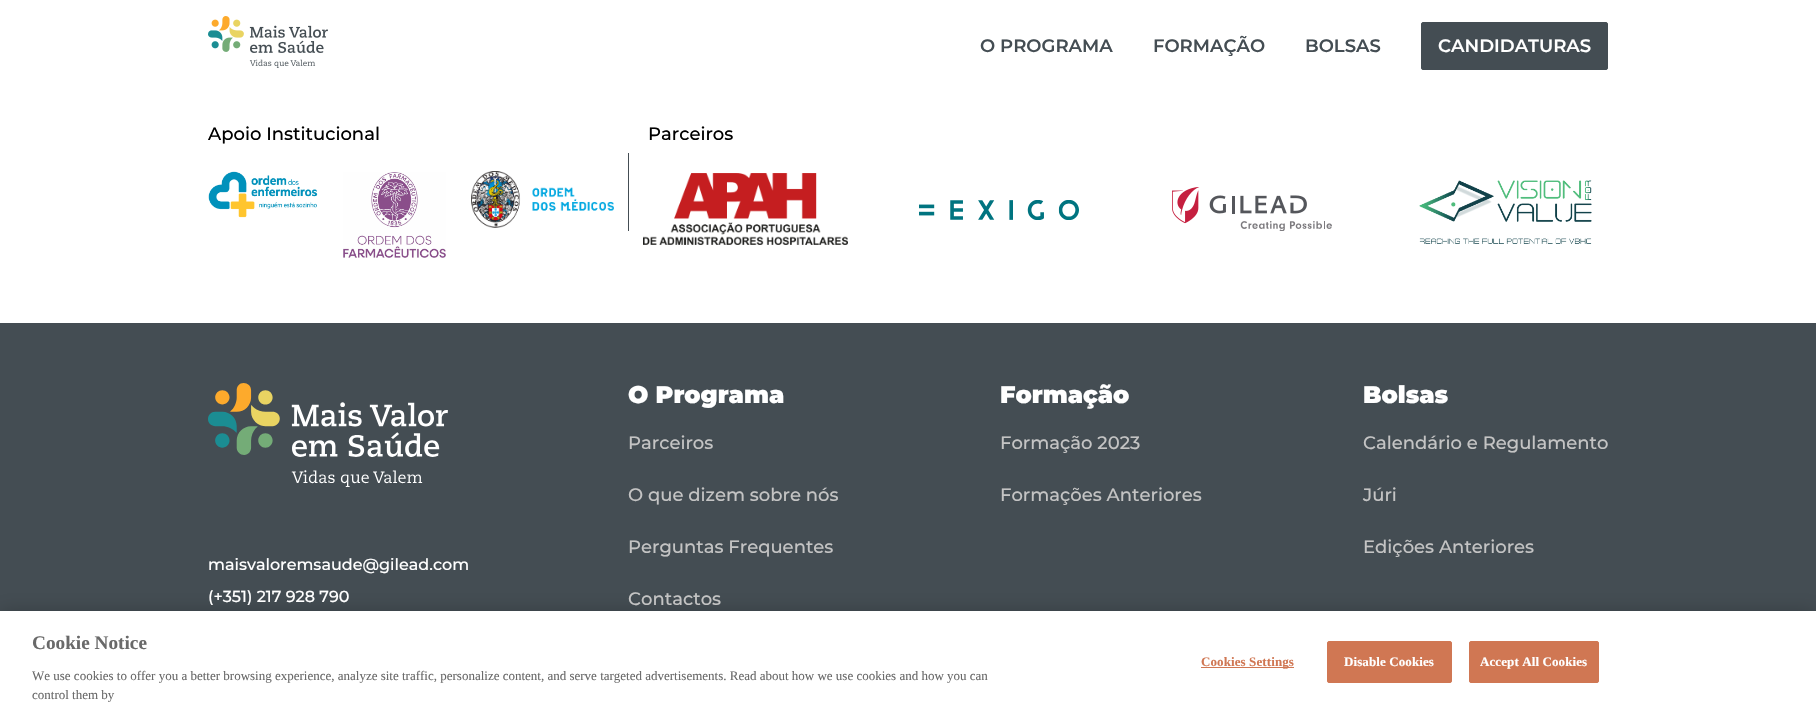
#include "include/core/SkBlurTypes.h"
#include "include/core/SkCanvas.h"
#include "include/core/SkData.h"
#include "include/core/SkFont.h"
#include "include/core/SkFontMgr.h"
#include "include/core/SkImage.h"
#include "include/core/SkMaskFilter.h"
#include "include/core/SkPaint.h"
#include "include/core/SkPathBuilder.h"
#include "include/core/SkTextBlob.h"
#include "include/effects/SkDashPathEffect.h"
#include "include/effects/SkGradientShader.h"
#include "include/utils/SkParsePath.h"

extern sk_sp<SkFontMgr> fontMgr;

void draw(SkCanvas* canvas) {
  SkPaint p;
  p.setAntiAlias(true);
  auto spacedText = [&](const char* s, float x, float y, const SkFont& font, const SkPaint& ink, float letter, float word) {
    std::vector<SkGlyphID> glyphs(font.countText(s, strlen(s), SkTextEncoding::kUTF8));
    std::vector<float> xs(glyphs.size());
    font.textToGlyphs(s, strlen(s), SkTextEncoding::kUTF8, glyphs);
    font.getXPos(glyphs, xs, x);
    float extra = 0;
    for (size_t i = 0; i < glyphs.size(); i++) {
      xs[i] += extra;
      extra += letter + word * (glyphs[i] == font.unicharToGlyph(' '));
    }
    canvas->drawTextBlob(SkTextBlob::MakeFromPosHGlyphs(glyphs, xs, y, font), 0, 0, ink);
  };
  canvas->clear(SK_ColorWHITE);
  canvas->drawImageRect(SkImages::DeferredFromEncodedData(SkData::MakeFromFileName("images/1.png")), SkRect::MakeLTRB(208, 16, 328, 68), SkSamplingOptions());
  p.setColor(SkColorSetRGB(68, 77, 83));
  canvas->drawRoundRect(SkRect::MakeLTRB(1421.5f, 22.5f, 1607.5f, 69.5f), 1.5f, 1.5f, p);
  p.setStyle(SkPaint::kStroke_Style);
  p.setStrokeWidth(1);
  canvas->drawRoundRect(SkRect::MakeLTRB(1421.5f, 22.5f, 1607.5f, 69.5f), 1.5f, 1.5f, p);
  canvas->drawImageRect(SkImages::DeferredFromEncodedData(SkData::MakeFromFileName("images/2.png")), SkRect::MakeLTRB(208, 171, 318, 218), SkSamplingOptions());
  canvas->drawImageRect(SkImages::DeferredFromEncodedData(SkData::MakeFromFileName("images/3.png")), SkRect::MakeLTRB(343, 172, 446, 258), SkSamplingOptions());
  canvas->drawImageRect(SkImages::DeferredFromEncodedData(SkData::MakeFromFileName("images/4.png")), SkRect::MakeLTRB(471, 171, 614, 228), SkSamplingOptions());
  canvas->drawImageRect(SkImages::DeferredFromEncodedData(SkData::MakeFromFileName("images/5.png")), SkRect::MakeLTRB(643, 173, 848, 245), SkSamplingOptions());
  canvas->drawImageRect(SkImages::DeferredFromEncodedData(SkData::MakeFromFileName("images/6.png")), SkRect::MakeLTRB(919, 200, 1079, 220), SkSamplingOptions());
  canvas->drawImageRect(SkImages::DeferredFromEncodedData(SkData::MakeFromFileName("images/7.png")), SkRect::MakeLTRB(1172, 187, 1332, 231), SkSamplingOptions());
  canvas->drawImageRect(SkImages::DeferredFromEncodedData(SkData::MakeFromFileName("images/8.png")), SkRect::MakeLTRB(1419, 180, 1592, 244), SkSamplingOptions());
  p.setStyle(SkPaint::kFill_Style);
  canvas->drawRect(SkRect::MakeLTRB(628, 153, 629, 231), p);
  canvas->drawRect(SkRect::MakeLTRB(0, 323, 1816, 611), p);
  canvas->drawImageRect(SkImages::DeferredFromEncodedData(SkData::MakeFromFileName("images/9.png")), SkRect::MakeLTRB(208, 383, 448, 487), SkSamplingOptions());
  p.setColor(SkColorSetARGB(51, 0, 0, 0));
  p.setMaskFilter(SkMaskFilter::MakeBlur(kNormal_SkBlurStyle, 9));
  canvas->drawRect(SkRect::MakeLTRB(0, 611, 1816, 715), p);
  p.setMaskFilter(nullptr);
  p.setColor(SK_ColorWHITE);
  canvas->drawRect(SkRect::MakeLTRB(0, 611, 1816, 715), p);
  p.setColor(SkColorSetRGB(208, 119, 83));
  canvas->drawRect(SkRect::MakeLTRB(1201, 667, 1294, 668), p);
  canvas->drawRoundRect(SkRect::MakeLTRB(1327.5f, 641.5f, 1451.5f, 682.5f), 1.5f, 1.5f, p);
  p.setStyle(SkPaint::kStroke_Style);
  canvas->drawRoundRect(SkRect::MakeLTRB(1327.5f, 641.5f, 1451.5f, 682.5f), 1.5f, 1.5f, p);
  p.setStyle(SkPaint::kFill_Style);
  canvas->drawRoundRect(SkRect::MakeLTRB(1469.5f, 641.5f, 1598.5f, 682.5f), 1.5f, 1.5f, p);
  p.setStyle(SkPaint::kStroke_Style);
  canvas->drawRoundRect(SkRect::MakeLTRB(1469.5f, 641.5f, 1598.5f, 682.5f), 1.5f, 1.5f, p);
  SkFont font1(fontMgr->matchFamilyStyle("Montserrat", SkFontStyle(600, SkFontStyle::kNormal_Width, SkFontStyle::kUpright_Slant)), 18);
  font1.setSubpixel(true);
  p.setStyle(SkPaint::kFill_Style);
  p.setColor(SkColorSetRGB(68, 77, 83));
  canvas->drawString("O PROGRAMA", 980, 52, font1, p);
  canvas->drawString("FORMAÇÃO", 1153, 52, font1, p);
  canvas->drawString("BOLSAS", 1305, 52, font1, p);
  p.setColor(SK_ColorWHITE);
  canvas->drawString("CANDIDATURAS", 1438, 52, font1, p);
  SkFont font2(fontMgr->matchFamilyStyle("Montserrat", SkFontStyle(500, SkFontStyle::kNormal_Width, SkFontStyle::kUpright_Slant)), 18);
  font2.setSubpixel(true);
  p.setColor(SK_ColorBLACK);
  canvas->drawString("Apoio Institucional", 208, 140, font2, p);
  canvas->drawString("Parceiros", 648, 140, font2, p);
  SkFont font3(fontMgr->matchFamilyStyle("Montserrat", SkFontStyle(500, SkFontStyle::kNormal_Width, SkFontStyle::kUpright_Slant)), 16);
  font3.setSubpixel(true);
  p.setColor(SK_ColorWHITE);
  canvas->drawString("maisvaloremsaude@gilead.com", 208, 570, font3, p);
  canvas->drawString("(+351) 217 928 790", 208, 602, font3, p);
  SkFont font4(fontMgr->matchFamilyStyle("Montserrat", SkFontStyle(900, SkFontStyle::kNormal_Width, SkFontStyle::kUpright_Slant)), 24);
  font4.setSubpixel(true);
  canvas->drawString("O Programa", 628, 403, font4, p);
  p.setColor(SkColorSetRGB(196, 196, 196));
  canvas->drawString("Parceiros", 628, 449, font2, p);
  canvas->drawString("O que dizem sobre nós", 628, 501, font2, p);
  canvas->drawString("Perguntas Frequentes", 628, 553, font2, p);
  canvas->drawString("Contactos", 628, 605, font2, p);
  p.setColor(SK_ColorWHITE);
  canvas->drawString("Formação", 1000, 403, font4, p);
  p.setColor(SkColorSetRGB(196, 196, 196));
  canvas->drawString("Formação 2023", 1000, 449, font2, p);
  canvas->drawString("Formações Anteriores", 1000, 501, font2, p);
  p.setColor(SK_ColorWHITE);
  canvas->drawString("Bolsas", 1363, 403, font4, p);
  p.setColor(SkColorSetRGB(196, 196, 196));
  canvas->drawString("Calendário e Regulamento", 1363, 449, font2, p);
  canvas->drawString("Júri", 1363, 501, font2, p);
  canvas->drawString("Edições Anteriores", 1363, 553, font2, p);
  SkFont font5(fontMgr->matchFamilyStyle("Liberation Serif", SkFontStyle::Bold()), 19.25f);
  font5.setSubpixel(true);
  p.setColor(SkColorSetRGB(105, 105, 105));
  canvas->drawString("Cookie Notice", 32, 649, font5, p);
  SkFont font6(fontMgr->matchFamilyStyle("Liberation Serif", SkFontStyle::Normal()), 13);
  font6.setSubpixel(true);
  canvas->drawString("We use cookies to offer you a better browsing experience, analyze site traffic, personalize content, and serve targeted advertisements. Read about how we use cookies and how you can", 32, 680, font6, p);
  canvas->drawString("control them by", 32, 699, font6, p);
  SkFont font7(fontMgr->matchFamilyStyle("Liberation Serif", SkFontStyle::Bold()), 13);
  font7.setSubpixel(true);
  p.setColor(SkColorSetRGB(208, 119, 83));
  spacedText("Cookies Settings", 1201, 666, font7, p, 0.1f, 0);
  p.setColor(SK_ColorWHITE);
  spacedText("Disable Cookies", 1344, 666, font7, p, 0.1f, 0);
  spacedText("Accept All Cookies", 1480, 666, font7, p, 0.1f, 0);
}
